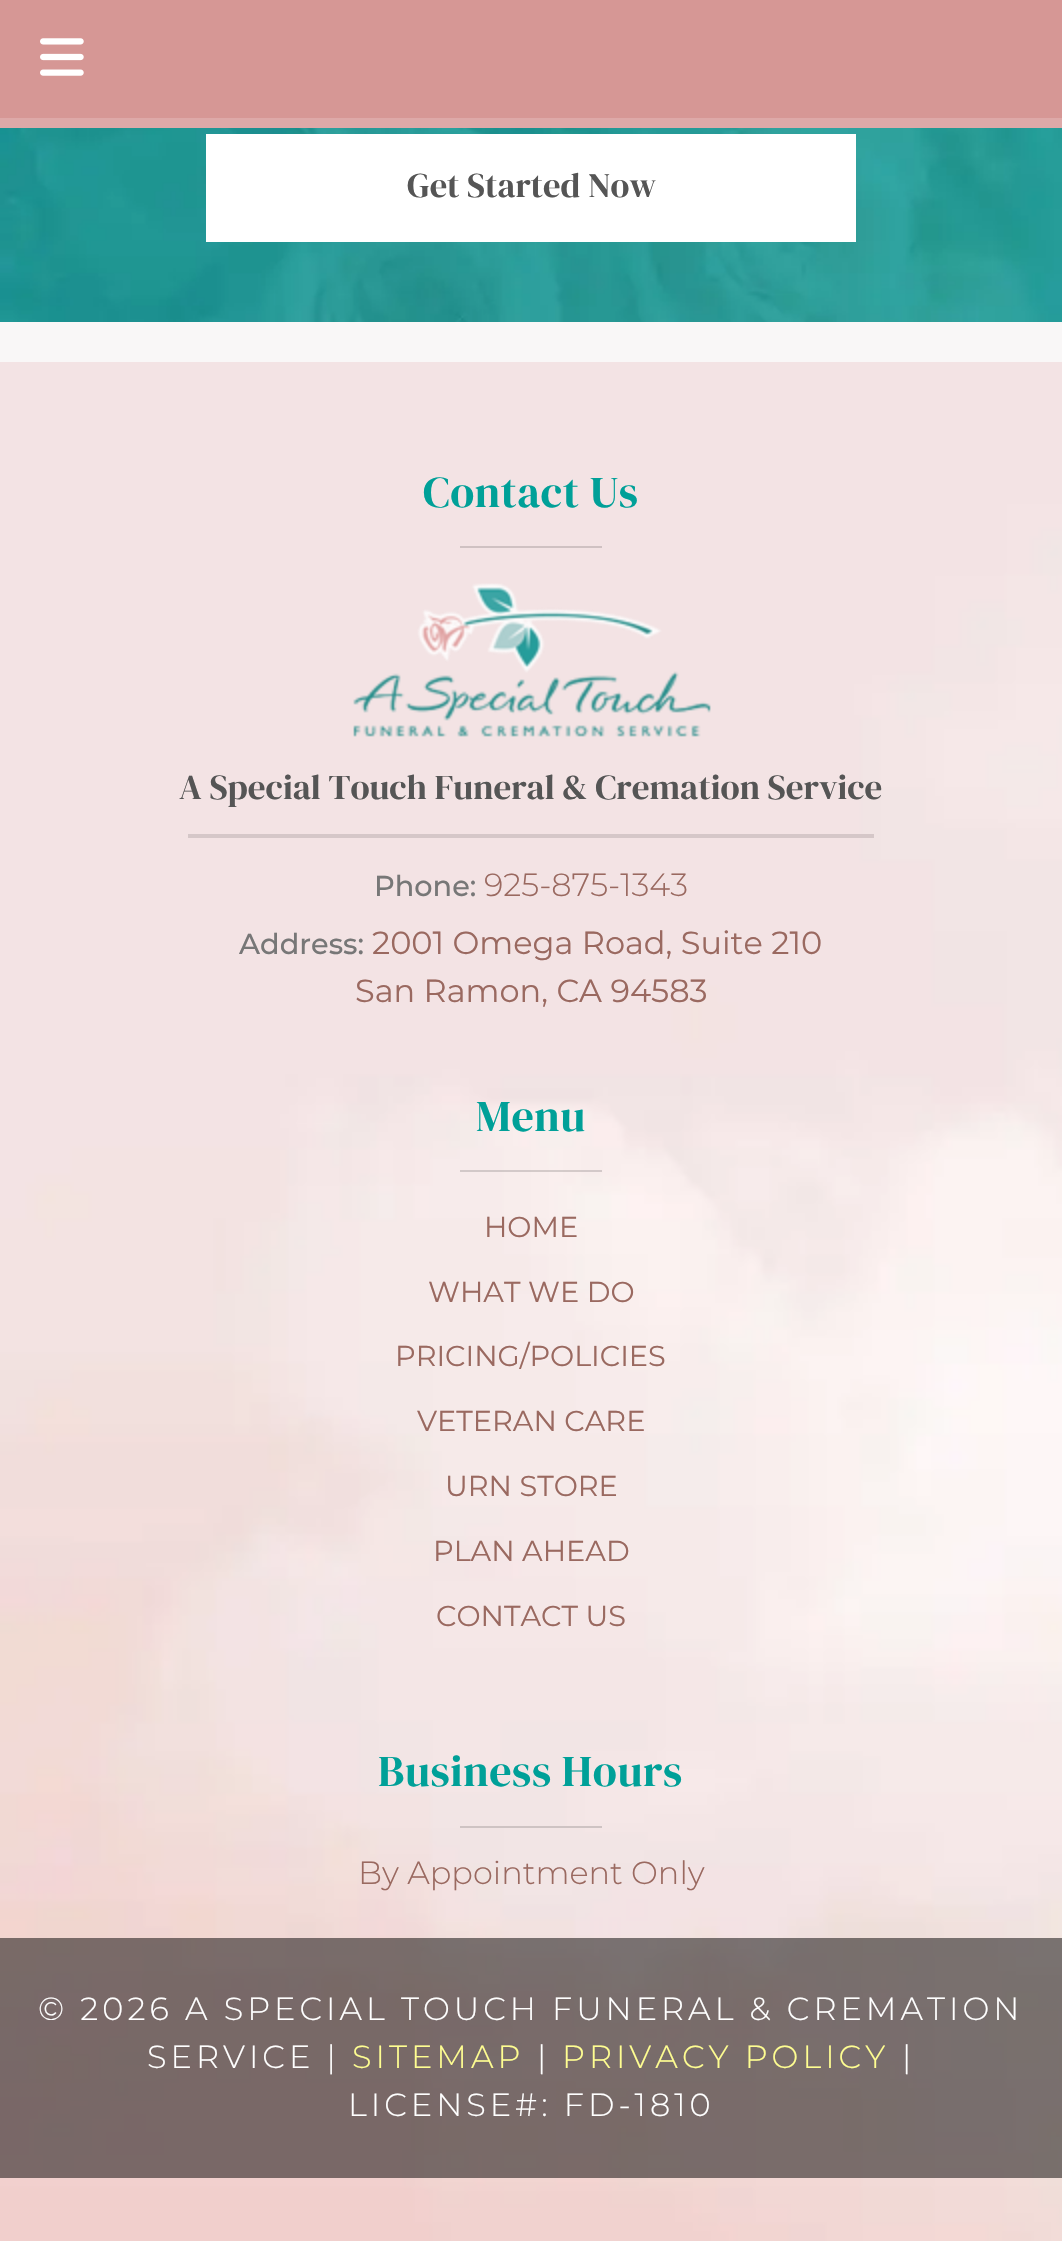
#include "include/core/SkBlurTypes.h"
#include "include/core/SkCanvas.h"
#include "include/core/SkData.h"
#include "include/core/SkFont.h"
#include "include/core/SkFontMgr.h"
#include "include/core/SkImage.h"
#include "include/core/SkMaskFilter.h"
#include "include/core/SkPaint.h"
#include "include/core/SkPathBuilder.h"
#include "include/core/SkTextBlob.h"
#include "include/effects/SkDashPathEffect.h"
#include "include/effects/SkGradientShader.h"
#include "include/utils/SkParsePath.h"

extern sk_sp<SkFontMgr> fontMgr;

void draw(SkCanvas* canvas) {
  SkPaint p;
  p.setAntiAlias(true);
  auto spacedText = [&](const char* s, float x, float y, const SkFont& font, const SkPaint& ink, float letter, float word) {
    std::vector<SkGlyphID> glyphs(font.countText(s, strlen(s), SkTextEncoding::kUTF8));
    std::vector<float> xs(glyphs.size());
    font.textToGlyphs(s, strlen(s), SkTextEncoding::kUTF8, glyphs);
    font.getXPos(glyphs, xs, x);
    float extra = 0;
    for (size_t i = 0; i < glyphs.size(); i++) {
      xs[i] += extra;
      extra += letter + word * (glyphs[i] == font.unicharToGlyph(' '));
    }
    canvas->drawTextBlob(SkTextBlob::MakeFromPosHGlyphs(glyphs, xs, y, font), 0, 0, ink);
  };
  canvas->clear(SK_ColorWHITE);
  p.setColor(SkColorSetRGB(214, 151, 149));
  canvas->drawRect(SkRect::MakeLTRB(0, 0, 1062, 118), p);
  p.setColor(SkColorSetRGB(221, 169, 168));
  canvas->drawRect(SkRect::MakeLTRB(0, 118, 1062, 128), p);
  canvas->drawImageRect(SkImages::DeferredFromEncodedData(SkData::MakeFromFileName("images/1.png")), SkRect::MakeLTRB(40, 38, 84, 76), SkSamplingOptions());
  canvas->drawImageRect(SkImages::DeferredFromEncodedData(SkData::MakeFromFileName("images/2.png")), SkRect::MakeLTRB(0, 128, 1062, 322), SkSamplingOptions());
  p.setColor(SK_ColorWHITE);
  canvas->drawRect(SkRect::MakeLTRB(206, 134, 856, 242), p);
  canvas->drawImageRect(SkImages::DeferredFromEncodedData(SkData::MakeFromFileName("images/3.png")), SkRect::MakeLTRB(0, 362, 1062, 2241), SkSamplingOptions());
  p.setColor(SkColorSetRGB(249, 247, 247));
  canvas->drawRect(SkRect::MakeLTRB(0, 322, 1062, 362), p);
  p.setColor(SkColorSetRGB(207, 193, 194));
  canvas->drawRect(SkRect::MakeLTRB(460, 546, 602, 548), p);
  canvas->drawImageRect(SkImages::DeferredFromEncodedData(SkData::MakeFromFileName("images/4.png")), SkRect::MakeLTRB(353, 583, 711, 737), SkSamplingOptions());
  p.setColor(SkColorSetRGB(213, 199, 200));
  canvas->drawRect(SkRect::MakeLTRB(188, 834, 874, 838), p);
  p.setColor(SkColorSetARGB(38, 0, 0, 0));
  canvas->drawRect(SkRect::MakeLTRB(460, 1170, 602, 1172), p);
  p.setColor(SkColorSetRGB(206, 195, 195));
  canvas->drawRect(SkRect::MakeLTRB(460, 1826, 602, 1828), p);
  p.setColor(SkColorSetARGB(128, 0, 0, 0));
  canvas->drawRect(SkRect::MakeLTRB(0, 1938, 1062, 2178), p);
  SkFont font1(fontMgr->matchFamilyStyle("DM Serif Display", SkFontStyle::Normal()), 34.5f);
  font1.setSubpixel(true);
  p.setColor(SkColorSetRGB(85, 85, 85));
  canvas->drawString("Get Started Now", 407, 197, font1, p);
  SkFont font2(fontMgr->matchFamilyStyle("DM Serif Display", SkFontStyle::Normal()), 44);
  font2.setSubpixel(true);
  p.setColor(SkColorSetRGB(0, 160, 152));
  spacedText("Contact Us", 423, 507, font2, p, 0.6f, 0);
  SkFont font3(fontMgr->matchFamilyStyle("DM Serif Display", SkFontStyle::Normal()), 35);
  font3.setSubpixel(true);
  p.setColor(SkColorSetRGB(85, 85, 85));
  canvas->drawString("A Special Touch Funeral & Cremation Service", 179, 799, font3, p);
  SkFont font4(fontMgr->matchFamilyStyle("Montserrat", SkFontStyle(500, SkFontStyle::kNormal_Width, SkFontStyle::kUpright_Slant)), 28.75f);
  font4.setSubpixel(true);
  p.setColor(SkColorSetRGB(119, 119, 119));
  canvas->drawString("Phone:", 374, 896, font4, p);
  SkFont font5(fontMgr->matchFamilyStyle("Montserrat", SkFontStyle(300, SkFontStyle::kNormal_Width, SkFontStyle::kUpright_Slant)), 32);
  font5.setSubpixel(true);
  p.setColor(SkColorSetRGB(154, 105, 96));
  canvas->drawString("925-875-1343", 484, 896, font5, p);
  p.setColor(SkColorSetRGB(119, 119, 119));
  canvas->drawString("Address:", 239, 954, font4, p);
  SkFont font6(fontMgr->matchFamilyStyle("Montserrat", SkFontStyle::Normal()), 32);
  font6.setSubpixel(true);
  p.setColor(SkColorSetRGB(154, 105, 96));
  canvas->drawString("2001 Omega Road, Suite 210", 372, 954, font6, p);
  canvas->drawString("San Ramon, CA 94583", 355, 1002, font6, p);
  p.setColor(SkColorSetRGB(0, 160, 152));
  spacedText("Menu", 476, 1131, font2, p, 0.6f, 0);
  SkFont font7(fontMgr->matchFamilyStyle("Montserrat", SkFontStyle::Normal()), 28.75f);
  font7.setSubpixel(true);
  p.setColor(SkColorSetRGB(154, 105, 96));
  canvas->drawString("HOME", 484, 1237, font7, p);
  canvas->drawString("WHAT WE DO", 428, 1302, font7, p);
  canvas->drawString("PRICING/POLICIES", 395, 1366, font7, p);
  canvas->drawString("VETERAN CARE", 417, 1431, font7, p);
  canvas->drawString("URN STORE", 445, 1496, font7, p);
  canvas->drawString("PLAN AHEAD", 433, 1561, font7, p);
  canvas->drawString("CONTACT US", 436, 1626, font7, p);
  p.setColor(SkColorSetRGB(0, 160, 152));
  spacedText("Business Hours", 378, 1786, font2, p, 0.6f, 0);
  p.setColor(SkColorSetRGB(154, 105, 96));
  canvas->drawString("By Appointment Only", 358, 1884, font5, p);
  p.setColor(SK_ColorWHITE);
  spacedText("© 2026 A SPECIAL TOUCH FUNERAL & CREMATION", 38, 2020, font5, p, 4, 0);
  spacedText("SERVICE |", 147, 2068, font5, p, 4, 0);
  p.setColor(SkColorSetRGB(255, 254, 145));
  spacedText("SITEMAP", 352, 2068, font5, p, 4, 0);
  p.setColor(SK_ColorWHITE);
  spacedText("|", 537, 2068, font5, p, 4, 0);
  p.setColor(SkColorSetRGB(255, 254, 145));
  spacedText("PRIVACY POLICY", 562, 2068, font5, p, 4, 0);
  p.setColor(SK_ColorWHITE);
  spacedText("|", 902, 2068, font5, p, 4, 0);
  spacedText("LICENSE#: FD-1810", 348, 2116, font5, p, 4, 0);
}
